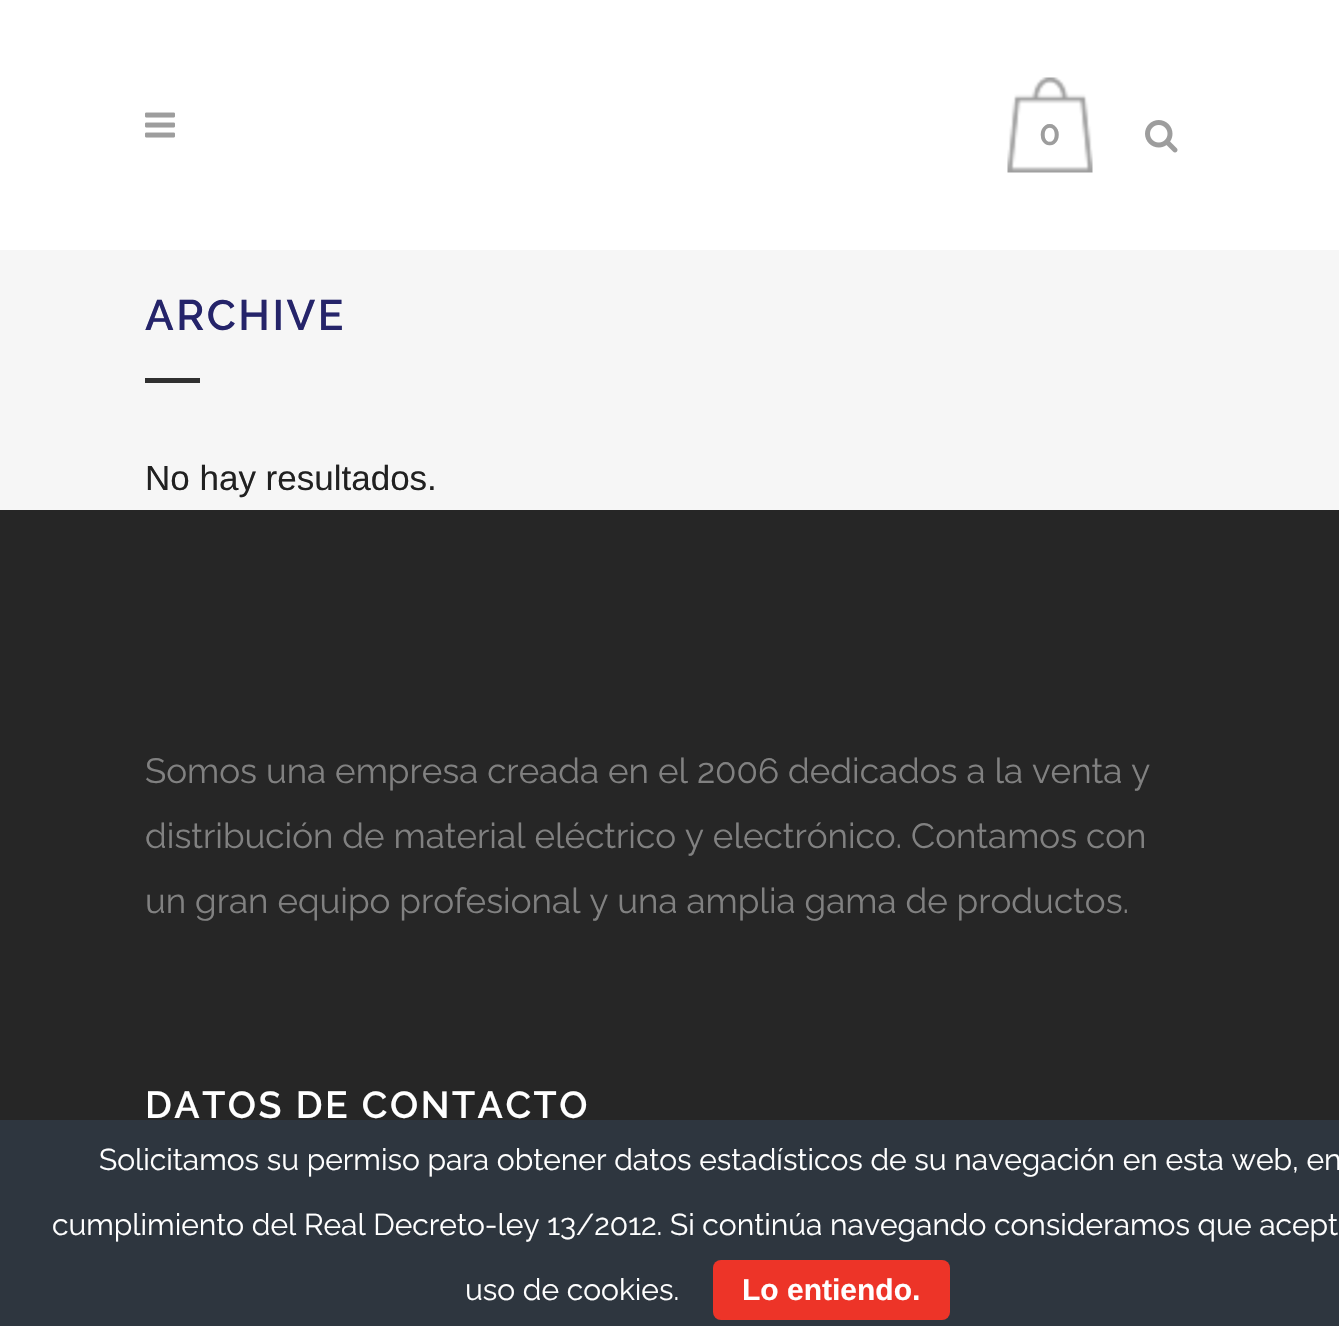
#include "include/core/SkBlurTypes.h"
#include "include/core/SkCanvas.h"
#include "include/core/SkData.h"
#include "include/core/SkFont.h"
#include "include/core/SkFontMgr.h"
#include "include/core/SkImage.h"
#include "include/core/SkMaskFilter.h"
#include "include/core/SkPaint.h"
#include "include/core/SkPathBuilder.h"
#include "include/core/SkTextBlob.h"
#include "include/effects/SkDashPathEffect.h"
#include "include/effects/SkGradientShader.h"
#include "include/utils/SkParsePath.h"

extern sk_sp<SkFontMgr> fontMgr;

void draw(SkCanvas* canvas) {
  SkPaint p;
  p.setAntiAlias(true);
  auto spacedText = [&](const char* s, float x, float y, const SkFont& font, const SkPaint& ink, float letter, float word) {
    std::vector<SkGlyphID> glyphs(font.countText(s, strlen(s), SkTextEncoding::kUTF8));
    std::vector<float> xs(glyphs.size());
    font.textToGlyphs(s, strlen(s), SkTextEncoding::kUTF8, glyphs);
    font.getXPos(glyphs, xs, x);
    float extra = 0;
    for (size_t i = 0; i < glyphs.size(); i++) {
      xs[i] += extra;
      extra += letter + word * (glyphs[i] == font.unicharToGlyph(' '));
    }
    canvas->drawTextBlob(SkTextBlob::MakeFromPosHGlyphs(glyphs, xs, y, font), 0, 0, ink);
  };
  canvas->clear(SkColorSetRGB(246, 246, 246));
  p.setColor(SK_ColorWHITE);
  canvas->drawRect(SkRect::MakeLTRB(0, 0, 1339, 250), p);
  canvas->drawImageRect(SkImages::DeferredFromEncodedData(SkData::MakeFromFileName("images/1.png")), SkRect::MakeLTRB(145, 112, 175, 138), SkSamplingOptions());
  canvas->drawImageRect(SkImages::DeferredFromEncodedData(SkData::MakeFromFileName("images/2.png")), SkRect::MakeLTRB(1007, 77, 1093, 173), SkSamplingOptions());
  canvas->drawImageRect(SkImages::DeferredFromEncodedData(SkData::MakeFromFileName("images/3.png")), SkRect::MakeLTRB(1145, 120, 1178, 153), SkSamplingOptions());
  p.setColor(SkColorSetRGB(48, 48, 48));
  canvas->drawRect(SkRect::MakeLTRB(145, 378, 200, 383), p);
  p.setColor(SkColorSetRGB(38, 38, 38));
  canvas->drawRect(SkRect::MakeLTRB(0, 510, 1339, 1120), p);
  p.setColor(SkColorSetRGB(46, 54, 63));
  canvas->drawRect(SkRect::MakeLTRB(0, 1120, 1339, 1326), p);
  p.setColor(SkColorSetRGB(237, 52, 40));
  canvas->drawRoundRect(SkRect::MakeLTRB(713, 1260, 950, 1320), 8, 8, p);
  SkFont font1(fontMgr->matchFamilyStyle("Raleway", SkFontStyle(600, SkFontStyle::kNormal_Width, SkFontStyle::kUpright_Slant)), 35);
  font1.setSubpixel(true);
  p.setColor(SkColorSetRGB(157, 157, 157));
  canvas->drawString("0", 1039, 145, font1, p);
  SkFont font2(fontMgr->matchFamilyStyle("Raleway", SkFontStyle(600, SkFontStyle::kNormal_Width, SkFontStyle::kUpright_Slant)), 42.5f);
  font2.setSubpixel(true);
  p.setColor(SkColorSetRGB(37, 36, 106));
  spacedText("ARCHIVE", 145, 330, font2, p, 2.5f, 0);
  SkFont font3(fontMgr->matchFamilyStyle("Arimo", SkFontStyle::Normal()), 35);
  font3.setSubpixel(true);
  p.setColor(SkColorSetRGB(33, 33, 33));
  canvas->drawString("No hay resultados.", 145, 490, font3, p);
  SkFont font4(fontMgr->matchFamilyStyle("Raleway", SkFontStyle::Normal()), 35);
  font4.setSubpixel(true);
  p.setColor(SkColorSetRGB(129, 129, 129));
  canvas->drawString("Somos una empresa creada en el 2006 dedicados a la venta y", 145, 783, font4, p);
  canvas->drawString("distribución de material eléctrico y electrónico. Contamos con", 145, 848, font4, p);
  canvas->drawString("un gran equipo profesional y una amplia gama de productos.", 145, 913, font4, p);
  SkFont font5(fontMgr->matchFamilyStyle("Raleway", SkFontStyle(600, SkFontStyle::kNormal_Width, SkFontStyle::kUpright_Slant)), 37.5f);
  font5.setSubpixel(true);
  p.setColor(SK_ColorWHITE);
  spacedText("DATOS DE CONTACTO", 145, 1118, font5, p, 2.5f, 0);
  SkFont font6(fontMgr->matchFamilyStyle("Raleway", SkFontStyle::Normal()), 30);
  font6.setSubpixel(true);
  canvas->drawString("Solicitamos su permiso para obtener datos estadísticos de su navegación en esta web, en", 99, 1170, font6, p);
  canvas->drawString("cumplimiento del Real Decreto-ley 13/2012. Si continúa navegando consideramos que acept", 52, 1235, font6, p);
  canvas->drawString("uso de cookies.", 465, 1300, font6, p);
  SkFont font7(fontMgr->matchFamilyStyle("Liberation Sans", SkFontStyle::Bold()), 30);
  font7.setSubpixel(true);
  canvas->drawString("Lo entiendo.", 742, 1300, font7, p);
}
